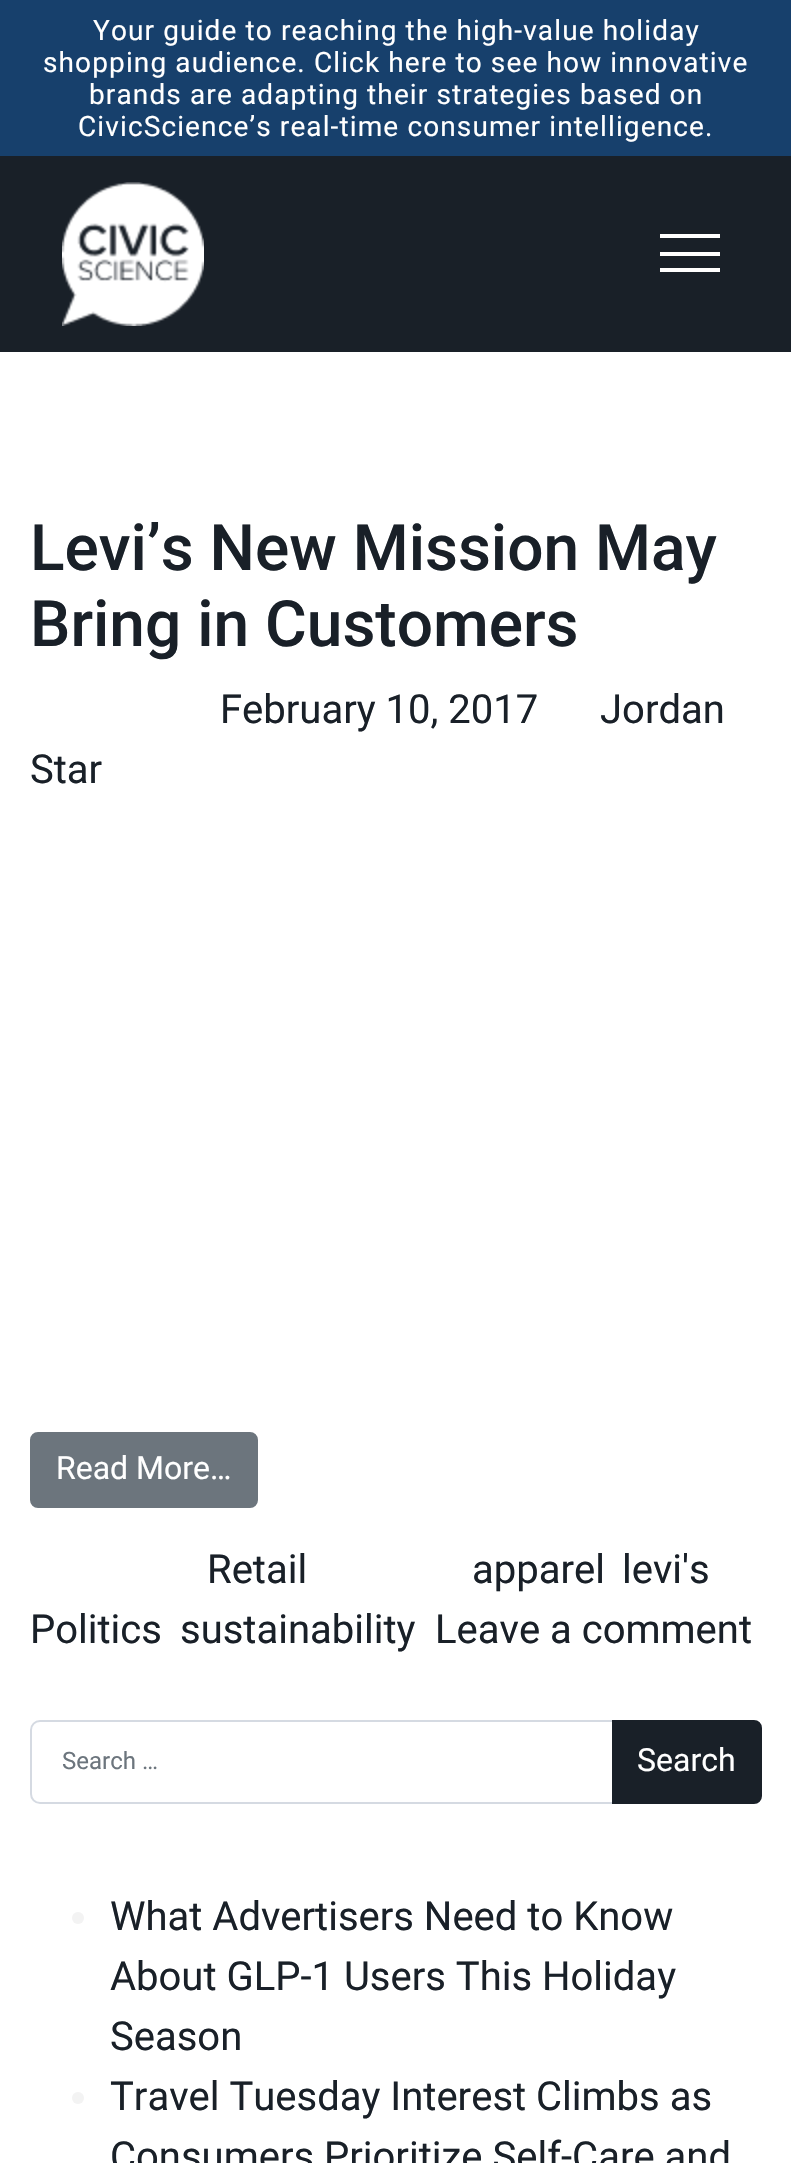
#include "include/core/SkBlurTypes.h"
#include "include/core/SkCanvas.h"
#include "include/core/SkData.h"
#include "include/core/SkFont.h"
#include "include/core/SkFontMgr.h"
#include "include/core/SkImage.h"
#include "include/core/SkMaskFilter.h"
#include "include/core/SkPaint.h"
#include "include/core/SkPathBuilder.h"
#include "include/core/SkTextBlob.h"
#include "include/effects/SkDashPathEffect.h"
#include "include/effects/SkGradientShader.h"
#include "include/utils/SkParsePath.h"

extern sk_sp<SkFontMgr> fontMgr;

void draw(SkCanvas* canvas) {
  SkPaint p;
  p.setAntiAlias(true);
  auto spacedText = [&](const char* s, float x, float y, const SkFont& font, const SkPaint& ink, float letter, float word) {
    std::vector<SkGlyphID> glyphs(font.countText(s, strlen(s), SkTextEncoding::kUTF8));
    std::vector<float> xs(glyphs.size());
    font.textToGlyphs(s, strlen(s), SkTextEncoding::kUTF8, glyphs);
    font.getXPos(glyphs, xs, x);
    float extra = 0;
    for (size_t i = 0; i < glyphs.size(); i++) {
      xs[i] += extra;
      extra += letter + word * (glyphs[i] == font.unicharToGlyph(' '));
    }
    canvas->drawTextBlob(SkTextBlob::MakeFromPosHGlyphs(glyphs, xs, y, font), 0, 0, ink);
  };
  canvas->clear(SK_ColorWHITE);
  p.setColor(SkColorSetRGB(25, 32, 40));
  canvas->drawRect(SkRect::MakeLTRB(0, 156, 791, 352), p);
  p.setColor(SkColorSetRGB(23, 64, 108));
  canvas->drawRect(SkRect::MakeLTRB(0, 0, 791, 156), p);
  canvas->drawImageRect(SkImages::DeferredFromEncodedData(SkData::MakeFromFileName("images/1.png")), SkRect::MakeLTRB(62, 182, 204, 326), SkSamplingOptions());
  p.setColor(SK_ColorWHITE);
  canvas->drawRect(SkRect::MakeLTRB(660, 234, 720, 238), p);
  canvas->drawRect(SkRect::MakeLTRB(660, 252, 720, 256), p);
  canvas->drawRect(SkRect::MakeLTRB(660, 268, 720, 272), p);
  p.setColor(SkColorSetRGB(108, 117, 125));
  canvas->drawRoundRect(SkRect::MakeLTRB(31, 1433, 257, 1507), 7, 7, p);
  p.setStyle(SkPaint::kStroke_Style);
  p.setStrokeWidth(2);
  canvas->drawRoundRect(SkRect::MakeLTRB(31, 1433, 257, 1507), 7, 7, p);
  p.setColor(SkColorSetRGB(213, 218, 226));
  canvas->drawPath(SkPathBuilder().moveTo(40, 1721).lineTo(613, 1721).lineTo(613, 1803).lineTo(40, 1803).cubicTo(35, 1803, 31, 1799, 31, 1794).lineTo(31, 1730).cubicTo(31, 1725, 35, 1721, 40, 1721).close().detach(), p);
  p.setStyle(SkPaint::kFill_Style);
  p.setColor(SkColorSetRGB(25, 32, 40));
  canvas->drawPath(SkPathBuilder().moveTo(613, 1721).lineTo(754, 1721).cubicTo(758, 1721, 761, 1724, 761, 1728).lineTo(761, 1796).cubicTo(761, 1800, 758, 1803, 754, 1803).lineTo(613, 1803).close().detach(), p);
  p.setStyle(SkPaint::kStroke_Style);
  canvas->drawPath(SkPathBuilder().moveTo(613, 1721).lineTo(754, 1721).cubicTo(758, 1721, 761, 1724, 761, 1728).lineTo(761, 1796).cubicTo(761, 1800, 758, 1803, 754, 1803).lineTo(613, 1803).close().detach(), p);
  p.setStyle(SkPaint::kFill_Style);
  p.setColor(SkColorSetRGB(243, 243, 243));
  canvas->drawCircle(78, 1918, 6, p);
  canvas->drawCircle(78, 2098, 6, p);
  SkFont font1(fontMgr->matchFamilyStyle("Roboto", SkFontStyle::Normal()), 28);
  font1.setSubpixel(true);
  p.setColor(SK_ColorWHITE);
  spacedText("Your guide to reaching the high-value holiday", 93, 40, font1, p, 1.12f, 0);
  spacedText("shopping audience. Click here to see how innovative", 43, 72, font1, p, 1.12f, 0);
  spacedText("brands are adapting their strategies based on", 89, 104, font1, p, 1.12f, 0);
  spacedText("CivicScience’s real-time consumer intelligence.", 78, 136, font1, p, 1.12f, 0);
  SkFont font2(fontMgr->matchFamilyStyle("Roboto", SkFontStyle(500, SkFontStyle::kNormal_Width, SkFontStyle::kUpright_Slant)), 64);
  font2.setSubpixel(true);
  p.setColor(SkColorSetRGB(25, 32, 40));
  canvas->drawString("Levi’s New Mission May", 30, 570, font2, p);
  canvas->drawString("Bring in Customers", 30, 646, font2, p);
  SkFont font3(fontMgr->matchFamilyStyle("Roboto", SkFontStyle::Normal()), 40);
  font3.setSubpixel(true);
  canvas->drawString("February 10, 2017", 220, 723, font3, p);
  canvas->drawString("Jordan", 600, 723, font3, p);
  canvas->drawString("Star", 30, 783, font3, p);
  SkFont font4(fontMgr->matchFamilyStyle("Roboto", SkFontStyle::Normal()), 32);
  font4.setSubpixel(true);
  p.setColor(SK_ColorWHITE);
  canvas->drawString("Read More…", 56, 1479, font4, p);
  p.setColor(SkColorSetRGB(25, 32, 40));
  canvas->drawString("Retail", 207, 1583, font3, p);
  canvas->drawString("apparel", 472, 1583, font3, p);
  canvas->drawString("levi's", 622, 1583, font3, p);
  canvas->drawString("Politics", 30, 1643, font3, p);
  canvas->drawString("sustainability", 180, 1643, font3, p);
  canvas->drawString("Leave a comment", 435, 1643, font3, p);
  SkFont font5(fontMgr->matchFamilyStyle("Roboto", SkFontStyle::Normal()), 24);
  font5.setSubpixel(true);
  p.setColor(SkColorSetRGB(108, 117, 125));
  canvas->drawString("Search …", 62, 1769, font5, p);
  p.setColor(SK_ColorWHITE);
  canvas->drawString("Search", 637, 1771, font4, p);
  p.setColor(SkColorSetRGB(25, 32, 40));
  canvas->drawString("What Advertisers Need to Know", 110, 1930, font3, p);
  canvas->drawString("About GLP-1 Users This Holiday", 110, 1990, font3, p);
  canvas->drawString("Season", 110, 2050, font3, p);
  canvas->drawString("Travel Tuesday Interest Climbs as", 110, 2110, font3, p);
  canvas->drawString("Consumers Prioritize Self-Care and", 110, 2170, font3, p);
}
